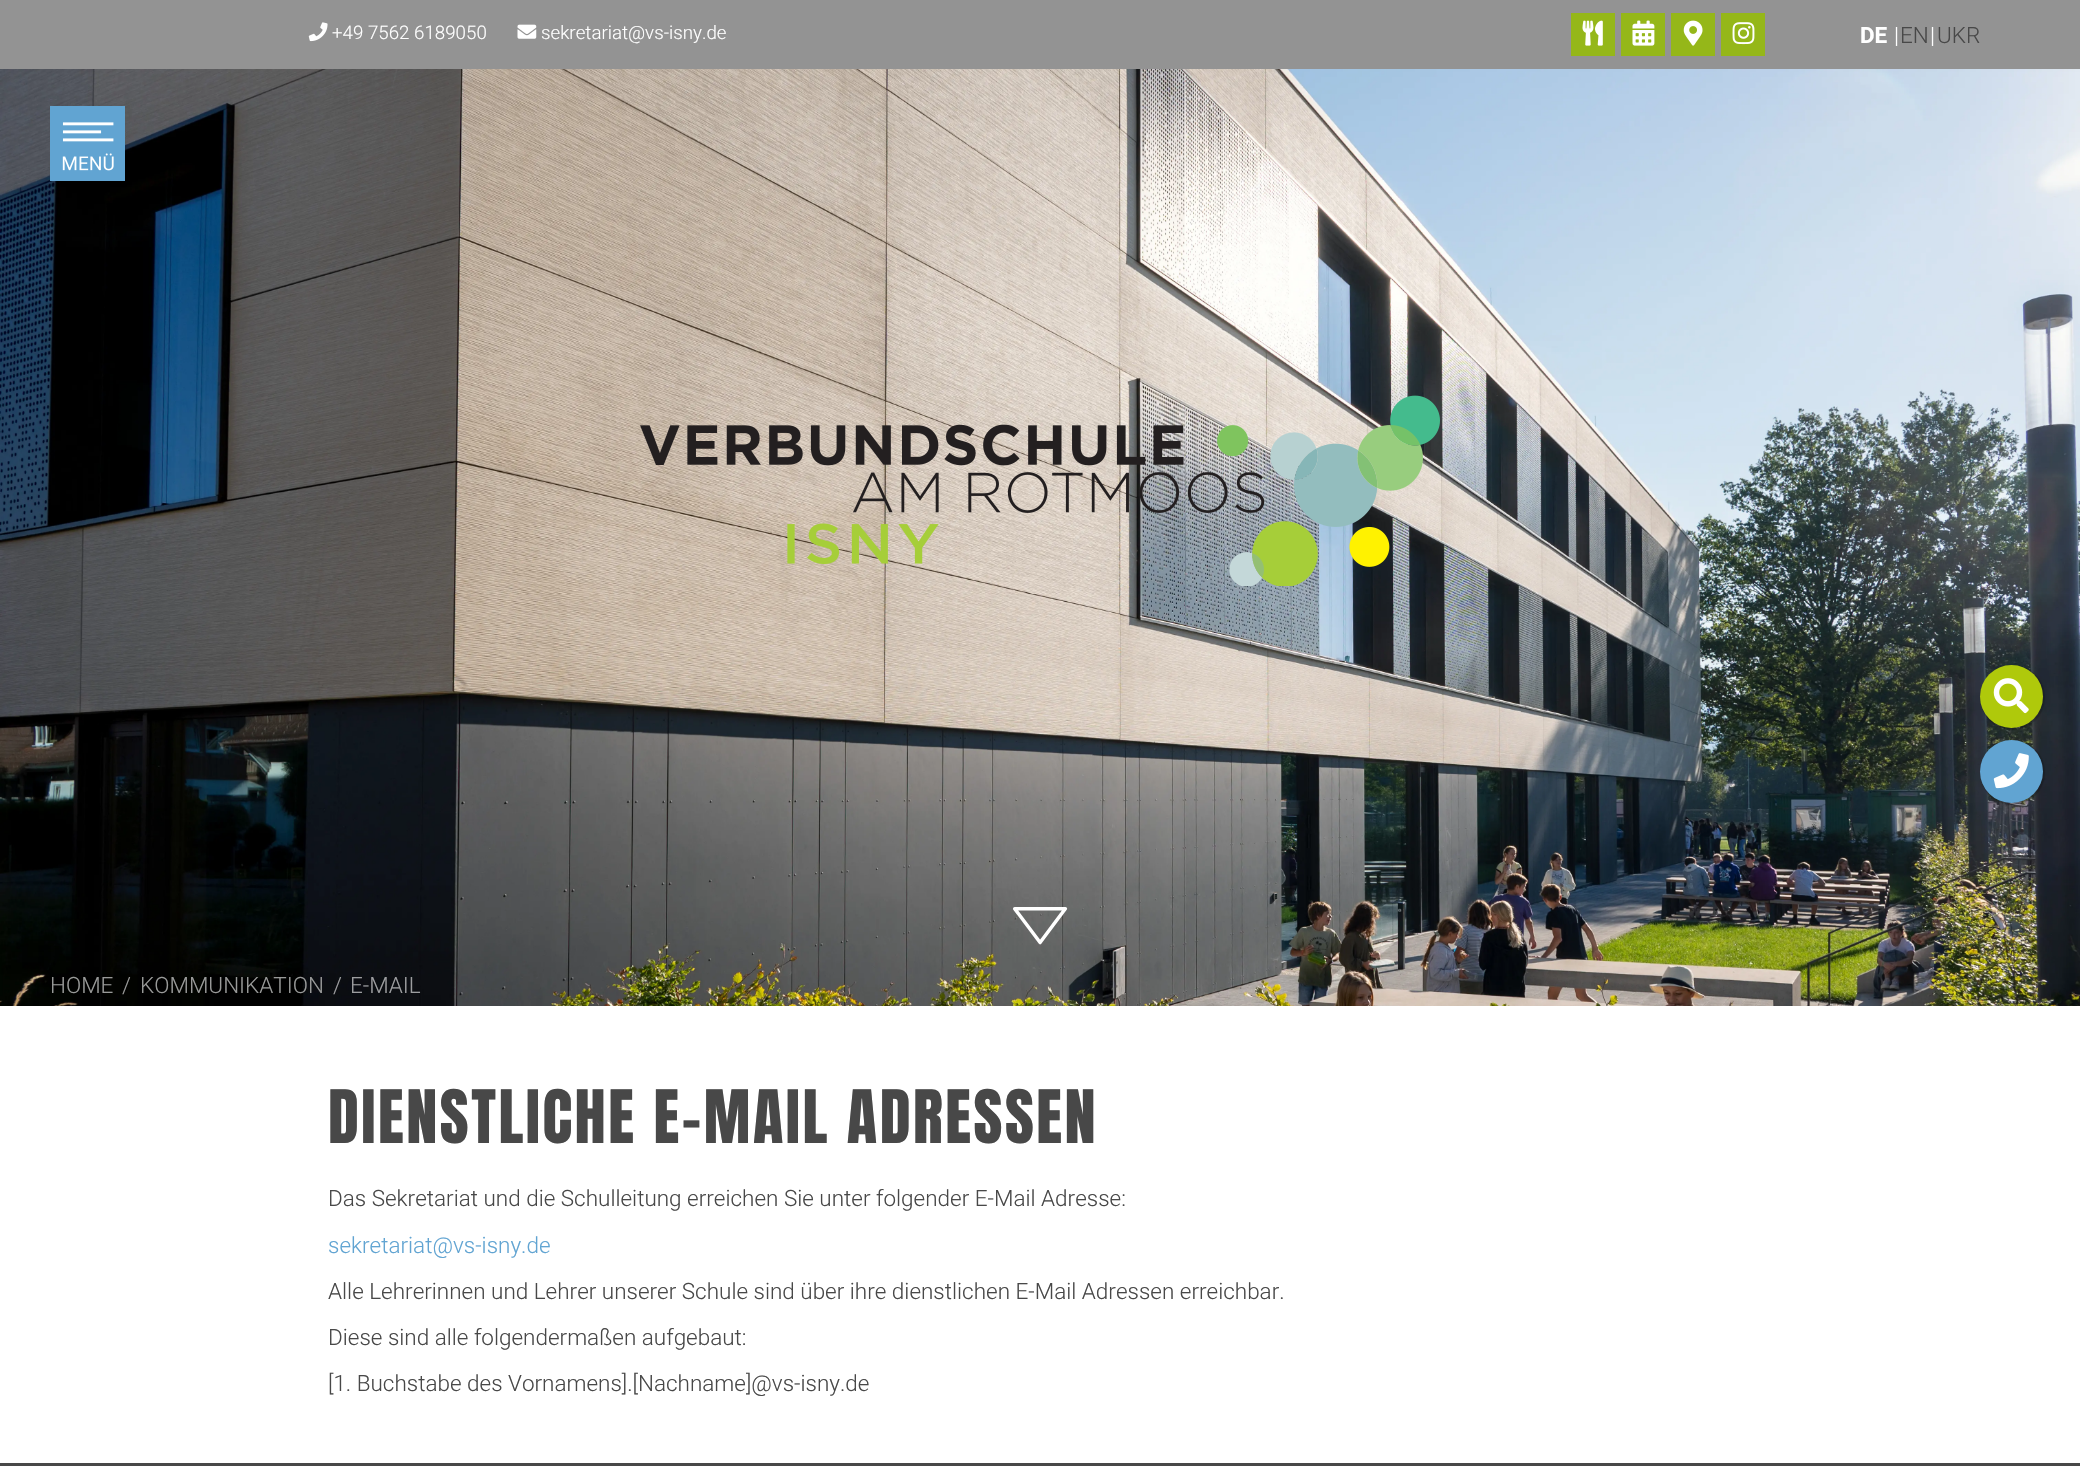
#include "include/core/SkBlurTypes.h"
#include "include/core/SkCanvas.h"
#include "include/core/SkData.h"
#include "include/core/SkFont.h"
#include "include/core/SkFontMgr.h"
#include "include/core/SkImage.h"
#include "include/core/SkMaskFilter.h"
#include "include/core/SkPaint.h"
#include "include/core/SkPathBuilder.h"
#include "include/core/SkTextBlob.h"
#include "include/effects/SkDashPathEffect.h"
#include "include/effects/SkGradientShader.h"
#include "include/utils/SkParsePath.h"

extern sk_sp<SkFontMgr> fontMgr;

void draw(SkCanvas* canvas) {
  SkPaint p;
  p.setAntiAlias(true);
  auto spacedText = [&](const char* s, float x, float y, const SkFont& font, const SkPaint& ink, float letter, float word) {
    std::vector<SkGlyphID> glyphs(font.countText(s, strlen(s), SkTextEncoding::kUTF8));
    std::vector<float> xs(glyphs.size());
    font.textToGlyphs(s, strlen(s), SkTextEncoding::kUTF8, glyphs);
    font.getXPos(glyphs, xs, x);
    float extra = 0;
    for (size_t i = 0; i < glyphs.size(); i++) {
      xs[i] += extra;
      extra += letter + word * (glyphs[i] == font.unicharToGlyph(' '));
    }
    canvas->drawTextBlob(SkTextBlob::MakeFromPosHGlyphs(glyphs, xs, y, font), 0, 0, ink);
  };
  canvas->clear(SK_ColorWHITE);
  p.setColor(SkColorSetRGB(147, 147, 147));
  canvas->drawRect(SkRect::MakeLTRB(0, 0, 2080, 69), p);
  canvas->drawImageRect(SkImages::DeferredFromEncodedData(SkData::MakeFromFileName("images/1.png")), SkRect::MakeLTRB(308, 22, 328, 42), SkSamplingOptions());
  canvas->drawImageRect(SkImages::DeferredFromEncodedData(SkData::MakeFromFileName("images/2.png")), SkRect::MakeLTRB(517, 24, 537, 39), SkSamplingOptions());
  p.setColor(SkColorSetRGB(149, 183, 25));
  canvas->drawRect(SkRect::MakeLTRB(1571, 13, 1615, 56), p);
  canvas->drawImageRect(SkImages::DeferredFromEncodedData(SkData::MakeFromFileName("images/3.png")), SkRect::MakeLTRB(1582, 20, 1603, 46), SkSamplingOptions());
  canvas->drawRect(SkRect::MakeLTRB(1621, 13, 1665, 56), p);
  canvas->drawImageRect(SkImages::DeferredFromEncodedData(SkData::MakeFromFileName("images/4.png")), SkRect::MakeLTRB(1632, 20, 1655, 46), SkSamplingOptions());
  canvas->drawRect(SkRect::MakeLTRB(1671, 13, 1715, 56), p);
  canvas->drawImageRect(SkImages::DeferredFromEncodedData(SkData::MakeFromFileName("images/5.png")), SkRect::MakeLTRB(1683, 20, 1703, 46), SkSamplingOptions());
  canvas->drawRect(SkRect::MakeLTRB(1721, 13, 1765, 56), p);
  canvas->drawImageRect(SkImages::DeferredFromEncodedData(SkData::MakeFromFileName("images/6.png")), SkRect::MakeLTRB(1732, 22, 1755, 45), SkSamplingOptions());
  canvas->drawImageRect(SkImages::DeferredFromEncodedData(SkData::MakeFromFileName("images/8.png")), SkRect::MakeLTRB(0, 69, 2080, 1006), SkSamplingOptions());
  p.setColor(SkColorSetRGB(97, 164, 210));
  canvas->drawRect(SkRect::MakeLTRB(50, 106, 125, 181), p);
  canvas->drawImageRect(SkImages::DeferredFromEncodedData(SkData::MakeFromFileName("images/7.png")), SkRect::MakeLTRB(62, 122, 114, 171), SkSamplingOptions());
  canvas->drawImageRect(SkImages::DeferredFromEncodedData(SkData::MakeFromFileName("images/9.png")), SkRect::MakeLTRB(640, 395, 1440, 586), SkSamplingOptions());
  canvas->drawImageRect(SkImages::DeferredFromEncodedData(SkData::MakeFromFileName("images/10.png")), SkRect::MakeLTRB(1013, 907, 1068, 945), SkSamplingOptions());
  p.setColor(SkColorSetARGB(51, 0, 0, 0));
  p.setMaskFilter(SkMaskFilter::MakeBlur(kNormal_SkBlurStyle, 0.5f));
  canvas->drawRoundRect(SkRect::MakeLTRB(1980, 665, 2045, 730), 32.5f, 32.5f, p);
  p.setMaskFilter(nullptr);
  p.setColor(SkColorSetRGB(175, 201, 11));
  canvas->drawCircle(2011.5f, 696.5f, 31.5f, p);
  canvas->drawImageRect(SkImages::DeferredFromEncodedData(SkData::MakeFromFileName("images/11.png")), SkRect::MakeLTRB(1993, 678, 2029, 714), SkSamplingOptions());
  p.setColor(SkColorSetARGB(51, 0, 0, 0));
  p.setMaskFilter(SkMaskFilter::MakeBlur(kNormal_SkBlurStyle, 0.5f));
  canvas->drawRoundRect(SkRect::MakeLTRB(1980, 740, 2045, 805), 32.5f, 32.5f, p);
  p.setMaskFilter(nullptr);
  p.setColor(SkColorSetRGB(97, 164, 210));
  canvas->drawCircle(2011.5f, 771.5f, 31.5f, p);
  canvas->drawImageRect(SkImages::DeferredFromEncodedData(SkData::MakeFromFileName("images/12.png")), SkRect::MakeLTRB(1993, 753, 2029, 789), SkSamplingOptions());
  p.setColor(SkColorSetRGB(72, 72, 72));
  canvas->drawRect(SkRect::MakeLTRB(0, 1463, 2080, 1466), p);
  SkFont font1(fontMgr->matchFamilyStyle("Roboto", SkFontStyle(300, SkFontStyle::kNormal_Width, SkFontStyle::kUpright_Slant)), 18.75f);
  font1.setSubpixel(true);
  p.setColor(SK_ColorWHITE);
  canvas->drawString("+49 7562 6189050", 332, 39, font1, p);
  canvas->drawString("sekretariat@vs-isny.de", 541, 39, font1, p);
  SkFont font2(fontMgr->matchFamilyStyle("Roboto", SkFontStyle::Bold()), 22.5f);
  font2.setSubpixel(true);
  canvas->drawString("DE", 1860, 43, font2, p);
  SkFont font3(fontMgr->matchFamilyStyle("Roboto", SkFontStyle(300, SkFontStyle::kNormal_Width, SkFontStyle::kUpright_Slant)), 22.5f);
  font3.setSubpixel(true);
  canvas->drawString("|", 1894, 43, font3, p);
  p.setColor(SkColorSetRGB(72, 72, 72));
  canvas->drawString("EN", 1900, 43, font3, p);
  p.setColor(SK_ColorWHITE);
  canvas->drawString("|", 1930, 43, font3, p);
  p.setColor(SkColorSetRGB(72, 72, 72));
  canvas->drawString("UKR", 1937, 43, font3, p);
  p.setColor(SkColorSetRGB(153, 154, 153));
  canvas->drawString("HOME", 50, 993, font3, p);
  canvas->drawString("/", 122, 993, font3, p);
  canvas->drawString("KOMMUNIKATION", 140, 993, font3, p);
  p.setColor(SkColorSetRGB(157, 158, 160));
  canvas->drawString("/", 333, 993, font3, p);
  canvas->drawString("E-MAIL", 350, 993, font3, p);
  SkFont font4(fontMgr->matchFamilyStyle("Anton", SkFontStyle::Normal()), 62.5f);
  font4.setSubpixel(true);
  p.setColor(SkColorSetRGB(72, 72, 72));
  spacedText("DIENSTLICHE E-MAIL ADRESSEN", 328, 1143, font4, p, 2.5f, 0);
  canvas->drawString("Das Sekretariat und die Schulleitung erreichen Sie unter folgender E-Mail Adresse:", 328, 1206, font3, p);
  p.setColor(SkColorSetRGB(97, 164, 210));
  canvas->drawString("sekretariat@vs-isny.de", 328, 1253, font3, p);
  p.setColor(SkColorSetRGB(72, 72, 72));
  canvas->drawString("Alle Lehrerinnen und Lehrer unserer Schule sind über ihre dienstlichen E-Mail Adressen erreichbar.", 328, 1299, font3, p);
  canvas->drawString("Diese sind alle folgendermaßen aufgebaut:", 328, 1345, font3, p);
  canvas->drawString("[1. Buchstabe des Vornamens].[Nachname]@vs-isny.de", 328, 1391, font3, p);
}
